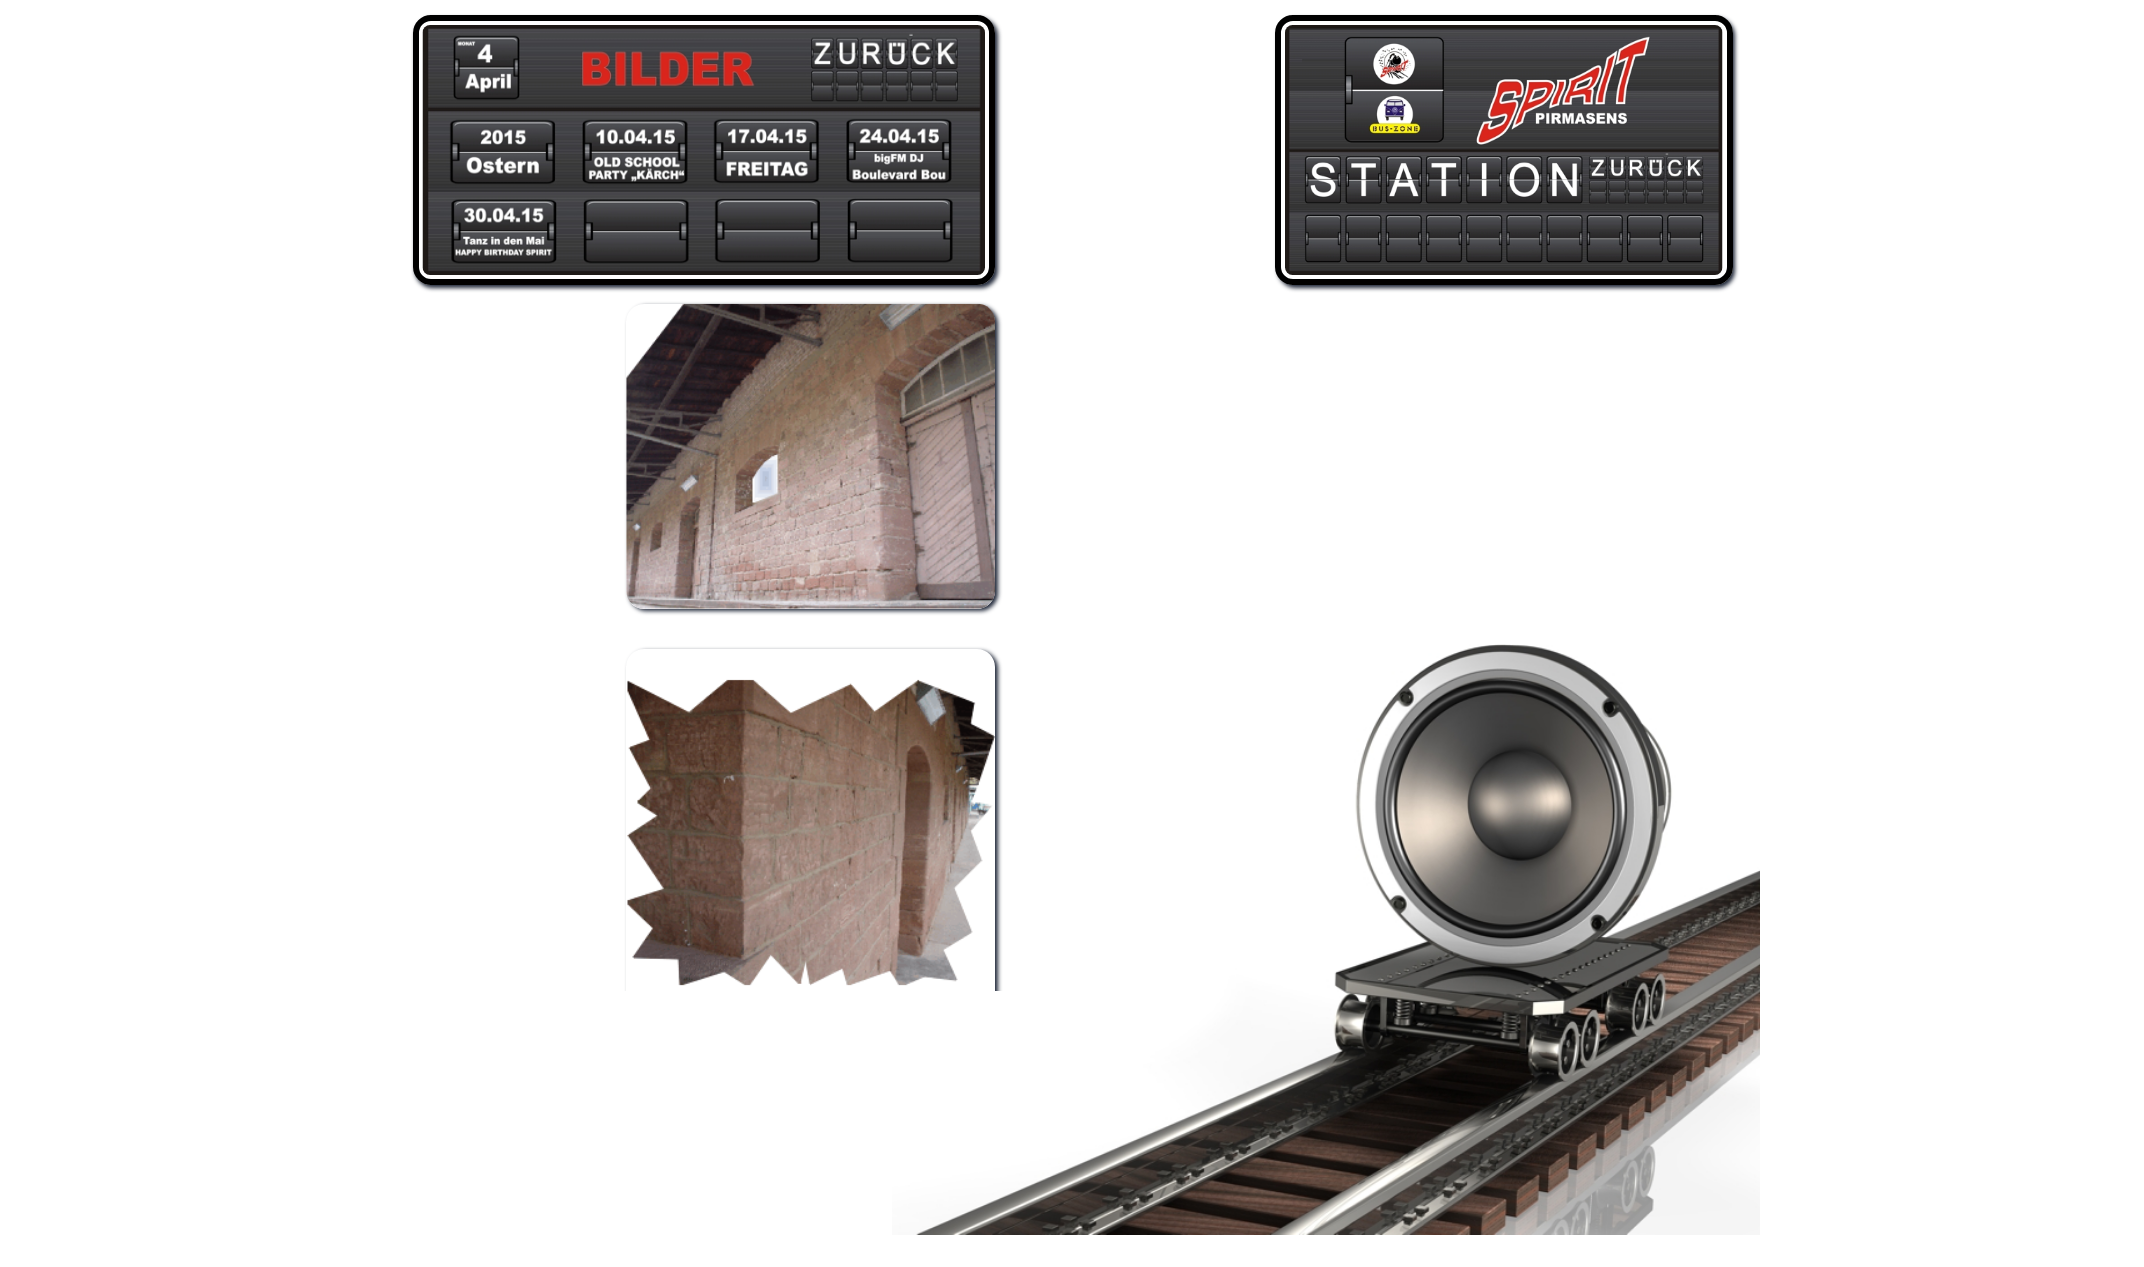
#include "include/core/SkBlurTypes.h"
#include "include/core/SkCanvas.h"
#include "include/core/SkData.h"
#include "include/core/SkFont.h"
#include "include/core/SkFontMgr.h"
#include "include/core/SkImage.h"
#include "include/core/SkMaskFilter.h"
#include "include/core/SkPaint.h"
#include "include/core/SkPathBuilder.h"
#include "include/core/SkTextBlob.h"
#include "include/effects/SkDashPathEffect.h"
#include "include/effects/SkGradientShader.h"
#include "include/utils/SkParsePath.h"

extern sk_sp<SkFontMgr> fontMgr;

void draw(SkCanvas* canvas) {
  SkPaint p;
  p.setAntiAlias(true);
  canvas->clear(SK_ColorWHITE);
  canvas->save();
  canvas->clipPath(SkPathBuilder(SkPathFillType::kEvenOdd).moveTo(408, 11).lineTo(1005, 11).lineTo(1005, 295).lineTo(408, 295).close().moveTo(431, 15).lineTo(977, 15).cubicTo(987, 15, 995, 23, 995, 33).lineTo(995, 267).cubicTo(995, 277, 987, 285, 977, 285).lineTo(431, 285).cubicTo(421, 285, 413, 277, 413, 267).lineTo(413, 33).cubicTo(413, 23, 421, 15, 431, 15).close().detach(), true);
  p.setColor(SkColorSetRGB(32, 40, 57));
  p.setMaskFilter(SkMaskFilter::MakeBlur(kNormal_SkBlurStyle, 2));
  canvas->drawRoundRect(SkRect::MakeLTRB(415, 18, 998, 288), 18, 18, p);
  p.setMaskFilter(nullptr);
  canvas->restore();
  p.setStyle(SkPaint::kStroke_Style);
  p.setStrokeWidth(6);
  p.setColor(SK_ColorBLACK);
  canvas->drawRoundRect(SkRect::MakeLTRB(416, 18, 992, 282), 15, 15, p);
  canvas->drawImageRect(SkImages::DeferredFromEncodedData(SkData::MakeFromFileName("images/1.png")), SkRect::MakeLTRB(422, 25, 985, 275), SkSamplingOptions());
  canvas->save();
  canvas->clipPath(SkPathBuilder(SkPathFillType::kEvenOdd).moveTo(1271, 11).lineTo(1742, 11).lineTo(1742, 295).lineTo(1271, 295).close().moveTo(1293, 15).lineTo(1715, 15).cubicTo(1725, 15, 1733, 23, 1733, 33).lineTo(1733, 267).cubicTo(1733, 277, 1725, 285, 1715, 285).lineTo(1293, 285).cubicTo(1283, 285, 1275, 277, 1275, 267).lineTo(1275, 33).cubicTo(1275, 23, 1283, 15, 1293, 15).close().detach(), true);
  p.setStyle(SkPaint::kFill_Style);
  p.setColor(SkColorSetRGB(32, 40, 57));
  p.setMaskFilter(SkMaskFilter::MakeBlur(kNormal_SkBlurStyle, 2));
  canvas->drawRoundRect(SkRect::MakeLTRB(1278, 18, 1735, 288), 18, 18, p);
  p.setMaskFilter(nullptr);
  canvas->restore();
  p.setStyle(SkPaint::kStroke_Style);
  p.setColor(SK_ColorBLACK);
  canvas->drawRoundRect(SkRect::MakeLTRB(1278, 18, 1730, 282), 15, 15, p);
  canvas->drawImageRect(SkImages::DeferredFromEncodedData(SkData::MakeFromFileName("images/2.png")), SkRect::MakeLTRB(1285, 25, 1723, 275), SkSamplingOptions());
  canvas->save();
  canvas->clipPath(SkPathBuilder(SkPathFillType::kEvenOdd).moveTo(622, 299).lineTo(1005, 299).lineTo(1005, 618).lineTo(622, 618).close().moveTo(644, 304).lineTo(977, 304).cubicTo(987, 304, 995, 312, 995, 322).lineTo(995, 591).cubicTo(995, 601, 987, 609, 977, 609).lineTo(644, 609).cubicTo(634, 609, 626, 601, 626, 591).lineTo(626, 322).cubicTo(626, 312, 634, 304, 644, 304).close().detach(), true);
  p.setStyle(SkPaint::kFill_Style);
  p.setColor(SkColorSetRGB(32, 40, 57));
  p.setMaskFilter(SkMaskFilter::MakeBlur(kNormal_SkBlurStyle, 2));
  canvas->drawRoundRect(SkRect::MakeLTRB(629, 306, 998, 611), 18, 18, p);
  p.setMaskFilter(nullptr);
  canvas->restore();
  canvas->drawImageRect(SkImages::DeferredFromEncodedData(SkData::MakeFromFileName("images/3.png")), SkRect::MakeLTRB(626, 303, 995, 609), SkSamplingOptions());
  canvas->drawImageRect(SkImages::DeferredFromEncodedData(SkData::MakeFromFileName("images/5.png")), SkRect::MakeLTRB(892, 644, 1760, 1235), SkSamplingOptions());
  canvas->save();
  canvas->clipRect(SkRect::MakeLTRB(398, 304, 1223, 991));
  canvas->clipPath(SkPathBuilder(SkPathFillType::kEvenOdd).moveTo(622, 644).lineTo(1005, 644).lineTo(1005, 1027).lineTo(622, 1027).close().moveTo(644, 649).lineTo(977, 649).cubicTo(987, 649, 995, 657, 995, 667).lineTo(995, 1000).cubicTo(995, 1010, 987, 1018, 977, 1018).lineTo(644, 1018).cubicTo(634, 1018, 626, 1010, 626, 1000).lineTo(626, 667).cubicTo(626, 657, 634, 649, 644, 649).close().detach(), true);
  p.setMaskFilter(SkMaskFilter::MakeBlur(kNormal_SkBlurStyle, 2));
  canvas->drawRoundRect(SkRect::MakeLTRB(629, 651, 998, 1020), 18, 18, p);
  p.setMaskFilter(nullptr);
  canvas->restore();
  canvas->drawImageRect(SkImages::DeferredFromEncodedData(SkData::MakeFromFileName("images/4.png")), SkRect::MakeLTRB(627, 679, 995, 986), SkSamplingOptions());
}
